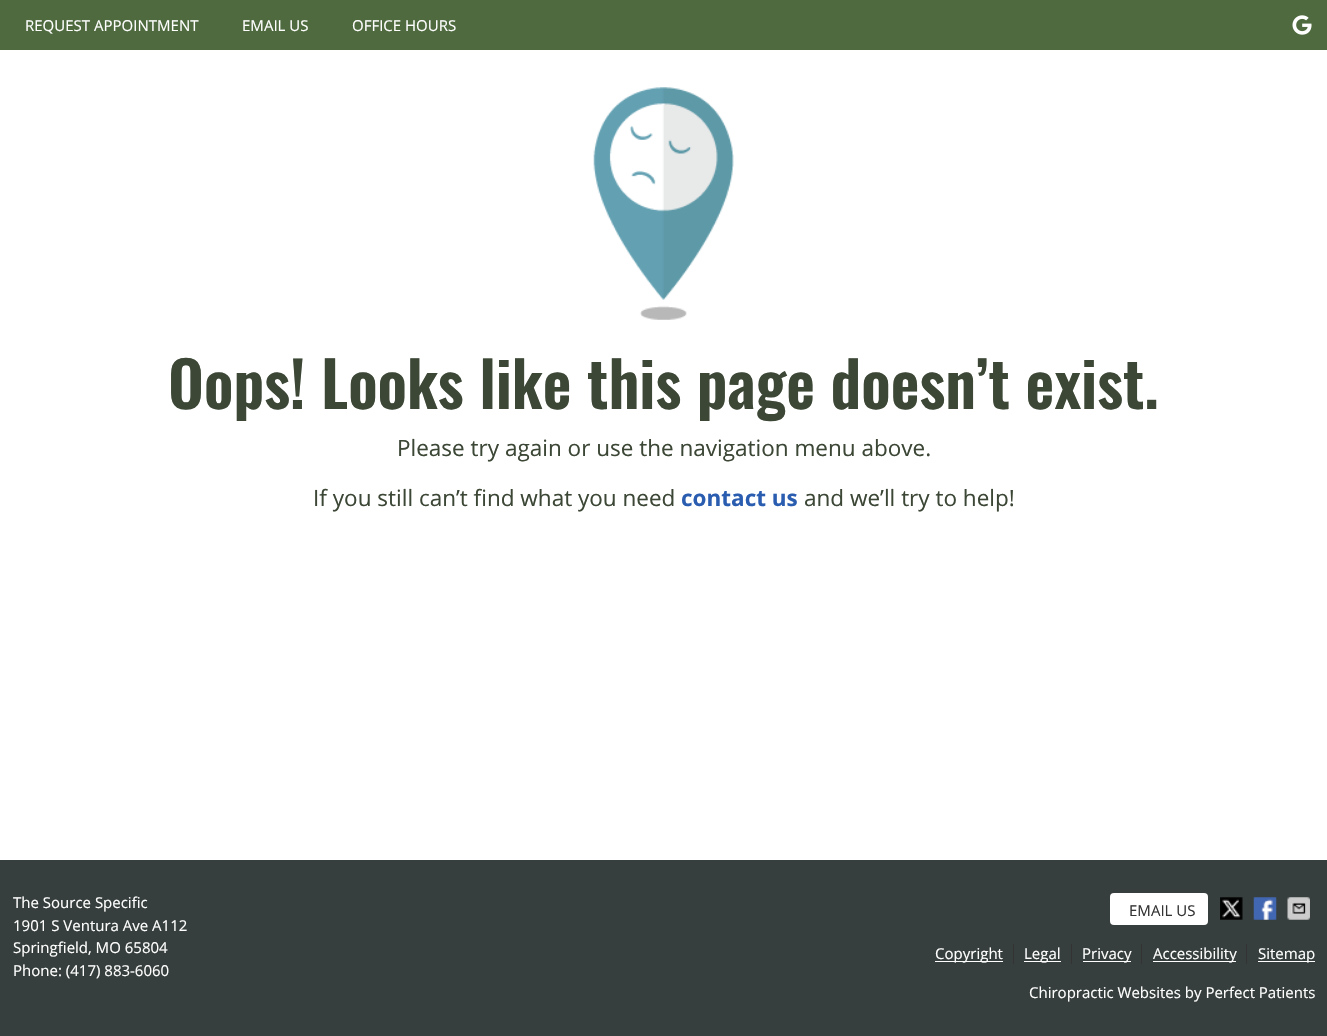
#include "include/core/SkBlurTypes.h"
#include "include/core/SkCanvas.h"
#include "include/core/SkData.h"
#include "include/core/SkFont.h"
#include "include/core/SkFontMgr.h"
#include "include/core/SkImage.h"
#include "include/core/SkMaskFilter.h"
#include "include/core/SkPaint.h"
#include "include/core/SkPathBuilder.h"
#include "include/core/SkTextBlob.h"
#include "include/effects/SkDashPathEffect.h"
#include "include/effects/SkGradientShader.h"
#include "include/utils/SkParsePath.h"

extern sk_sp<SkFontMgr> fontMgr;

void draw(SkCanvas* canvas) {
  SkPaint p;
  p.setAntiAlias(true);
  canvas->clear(SK_ColorWHITE);
  p.setColor(SkColorSetRGB(78, 106, 62));
  canvas->drawRect(SkRect::MakeLTRB(0, 0, 1327, 50), p);
  canvas->drawImageRect(SkImages::DeferredFromEncodedData(SkData::MakeFromFileName("images/1.png")), SkRect::MakeLTRB(1292, 15, 1312, 35), SkSamplingOptions());
  canvas->drawImageRect(SkImages::DeferredFromEncodedData(SkData::MakeFromFileName("images/2.png")), SkRect::MakeLTRB(593, 87, 734, 320), SkSamplingOptions());
  p.setColor(SkColorSetRGB(54, 63, 61));
  canvas->drawRect(SkRect::MakeLTRB(0, 860, 1327, 1036), p);
  p.setColor(SK_ColorWHITE);
  canvas->drawRoundRect(SkRect::MakeLTRB(1110, 893, 1208, 925), 4, 4, p);
  canvas->drawImageRect(SkImages::DeferredFromEncodedData(SkData::MakeFromFileName("images/3.png")), SkRect::MakeLTRB(1220, 897, 1243, 920), SkSamplingOptions());
  canvas->drawImageRect(SkImages::DeferredFromEncodedData(SkData::MakeFromFileName("images/4.png")), SkRect::MakeLTRB(1253, 897, 1277, 920), SkSamplingOptions());
  canvas->drawImageRect(SkImages::DeferredFromEncodedData(SkData::MakeFromFileName("images/5.png")), SkRect::MakeLTRB(1287, 897, 1310, 920), SkSamplingOptions());
  p.setColor(SkColorSetRGB(51, 51, 51));
  canvas->drawRect(SkRect::MakeLTRB(1013, 944, 1014, 964), p);
  p.setColor(SK_ColorWHITE);
  canvas->drawRect(SkRect::MakeLTRB(935, 961, 1003, 962), p);
  p.setColor(SkColorSetRGB(51, 51, 51));
  canvas->drawRect(SkRect::MakeLTRB(1071, 944, 1072, 964), p);
  p.setColor(SK_ColorWHITE);
  canvas->drawRect(SkRect::MakeLTRB(1024, 961, 1061, 962), p);
  p.setColor(SkColorSetRGB(51, 51, 51));
  canvas->drawRect(SkRect::MakeLTRB(1141, 944, 1142, 964), p);
  p.setColor(SK_ColorWHITE);
  canvas->drawRect(SkRect::MakeLTRB(1083, 961, 1131, 962), p);
  p.setColor(SkColorSetRGB(51, 51, 51));
  canvas->drawRect(SkRect::MakeLTRB(1246, 944, 1247, 964), p);
  p.setColor(SK_ColorWHITE);
  canvas->drawRect(SkRect::MakeLTRB(1153, 961, 1236, 962), p);
  canvas->drawRect(SkRect::MakeLTRB(1258, 961, 1315, 962), p);
  SkFont font1(fontMgr->matchFamilyStyle("Open Sans", SkFontStyle::Normal()), 15);
  font1.setSubpixel(true);
  canvas->drawString("REQUEST APPOINTMENT", 25, 31, font1, p);
  canvas->drawString("EMAIL US", 242, 31, font1, p);
  canvas->drawString("OFFICE HOURS", 352, 31, font1, p);
  SkFont font2(fontMgr->matchFamilyStyle("Oswald", SkFontStyle(600, SkFontStyle::kNormal_Width, SkFontStyle::kUpright_Slant)), 62.5f);
  font2.setSubpixel(true);
  p.setColor(SkColorSetRGB(60, 71, 54));
  canvas->drawString("Oops! Looks like this page doesn’t exist.", 168, 409, font2, p);
  SkFont font3(fontMgr->matchFamilyStyle("Open Sans", SkFontStyle::Normal()), 22.5f);
  font3.setSubpixel(true);
  canvas->drawString("Please try again or use the navigation menu above.", 397, 456, font3, p);
  canvas->drawString("If you still can’t find what you need", 313, 506, font3, p);
  SkFont font4(fontMgr->matchFamilyStyle("Open Sans", SkFontStyle::Bold()), 22.5f);
  font4.setSubpixel(true);
  p.setColor(SkColorSetRGB(42, 93, 176));
  canvas->drawString("contact us", 681, 506, font4, p);
  p.setColor(SkColorSetRGB(60, 71, 54));
  canvas->drawString("and we’ll try to help!", 804, 506, font3, p);
  p.setColor(SK_ColorWHITE);
  canvas->drawString("The Source Specific", 13, 908, font1, p);
  canvas->drawString("1901 S Ventura Ave A112", 13, 931, font1, p);
  canvas->drawString("Springfield, MO 65804", 13, 953, font1, p);
  canvas->drawString("Phone: (417) 883-6060", 13, 976, font1, p);
  p.setColor(SkColorSetRGB(51, 51, 51));
  canvas->drawString("EMAIL US", 1129, 916, font1, p);
  p.setColor(SK_ColorWHITE);
  canvas->drawString("Copyright", 935, 959, font1, p);
  canvas->drawString("Legal", 1024, 959, font1, p);
  canvas->drawString("Privacy", 1082, 959, font1, p);
  canvas->drawString("Accessibility", 1153, 959, font1, p);
  canvas->drawString("Sitemap", 1258, 959, font1, p);
  canvas->drawString("Chiropractic Websites by Perfect Patients", 1029, 998, font1, p);
}
